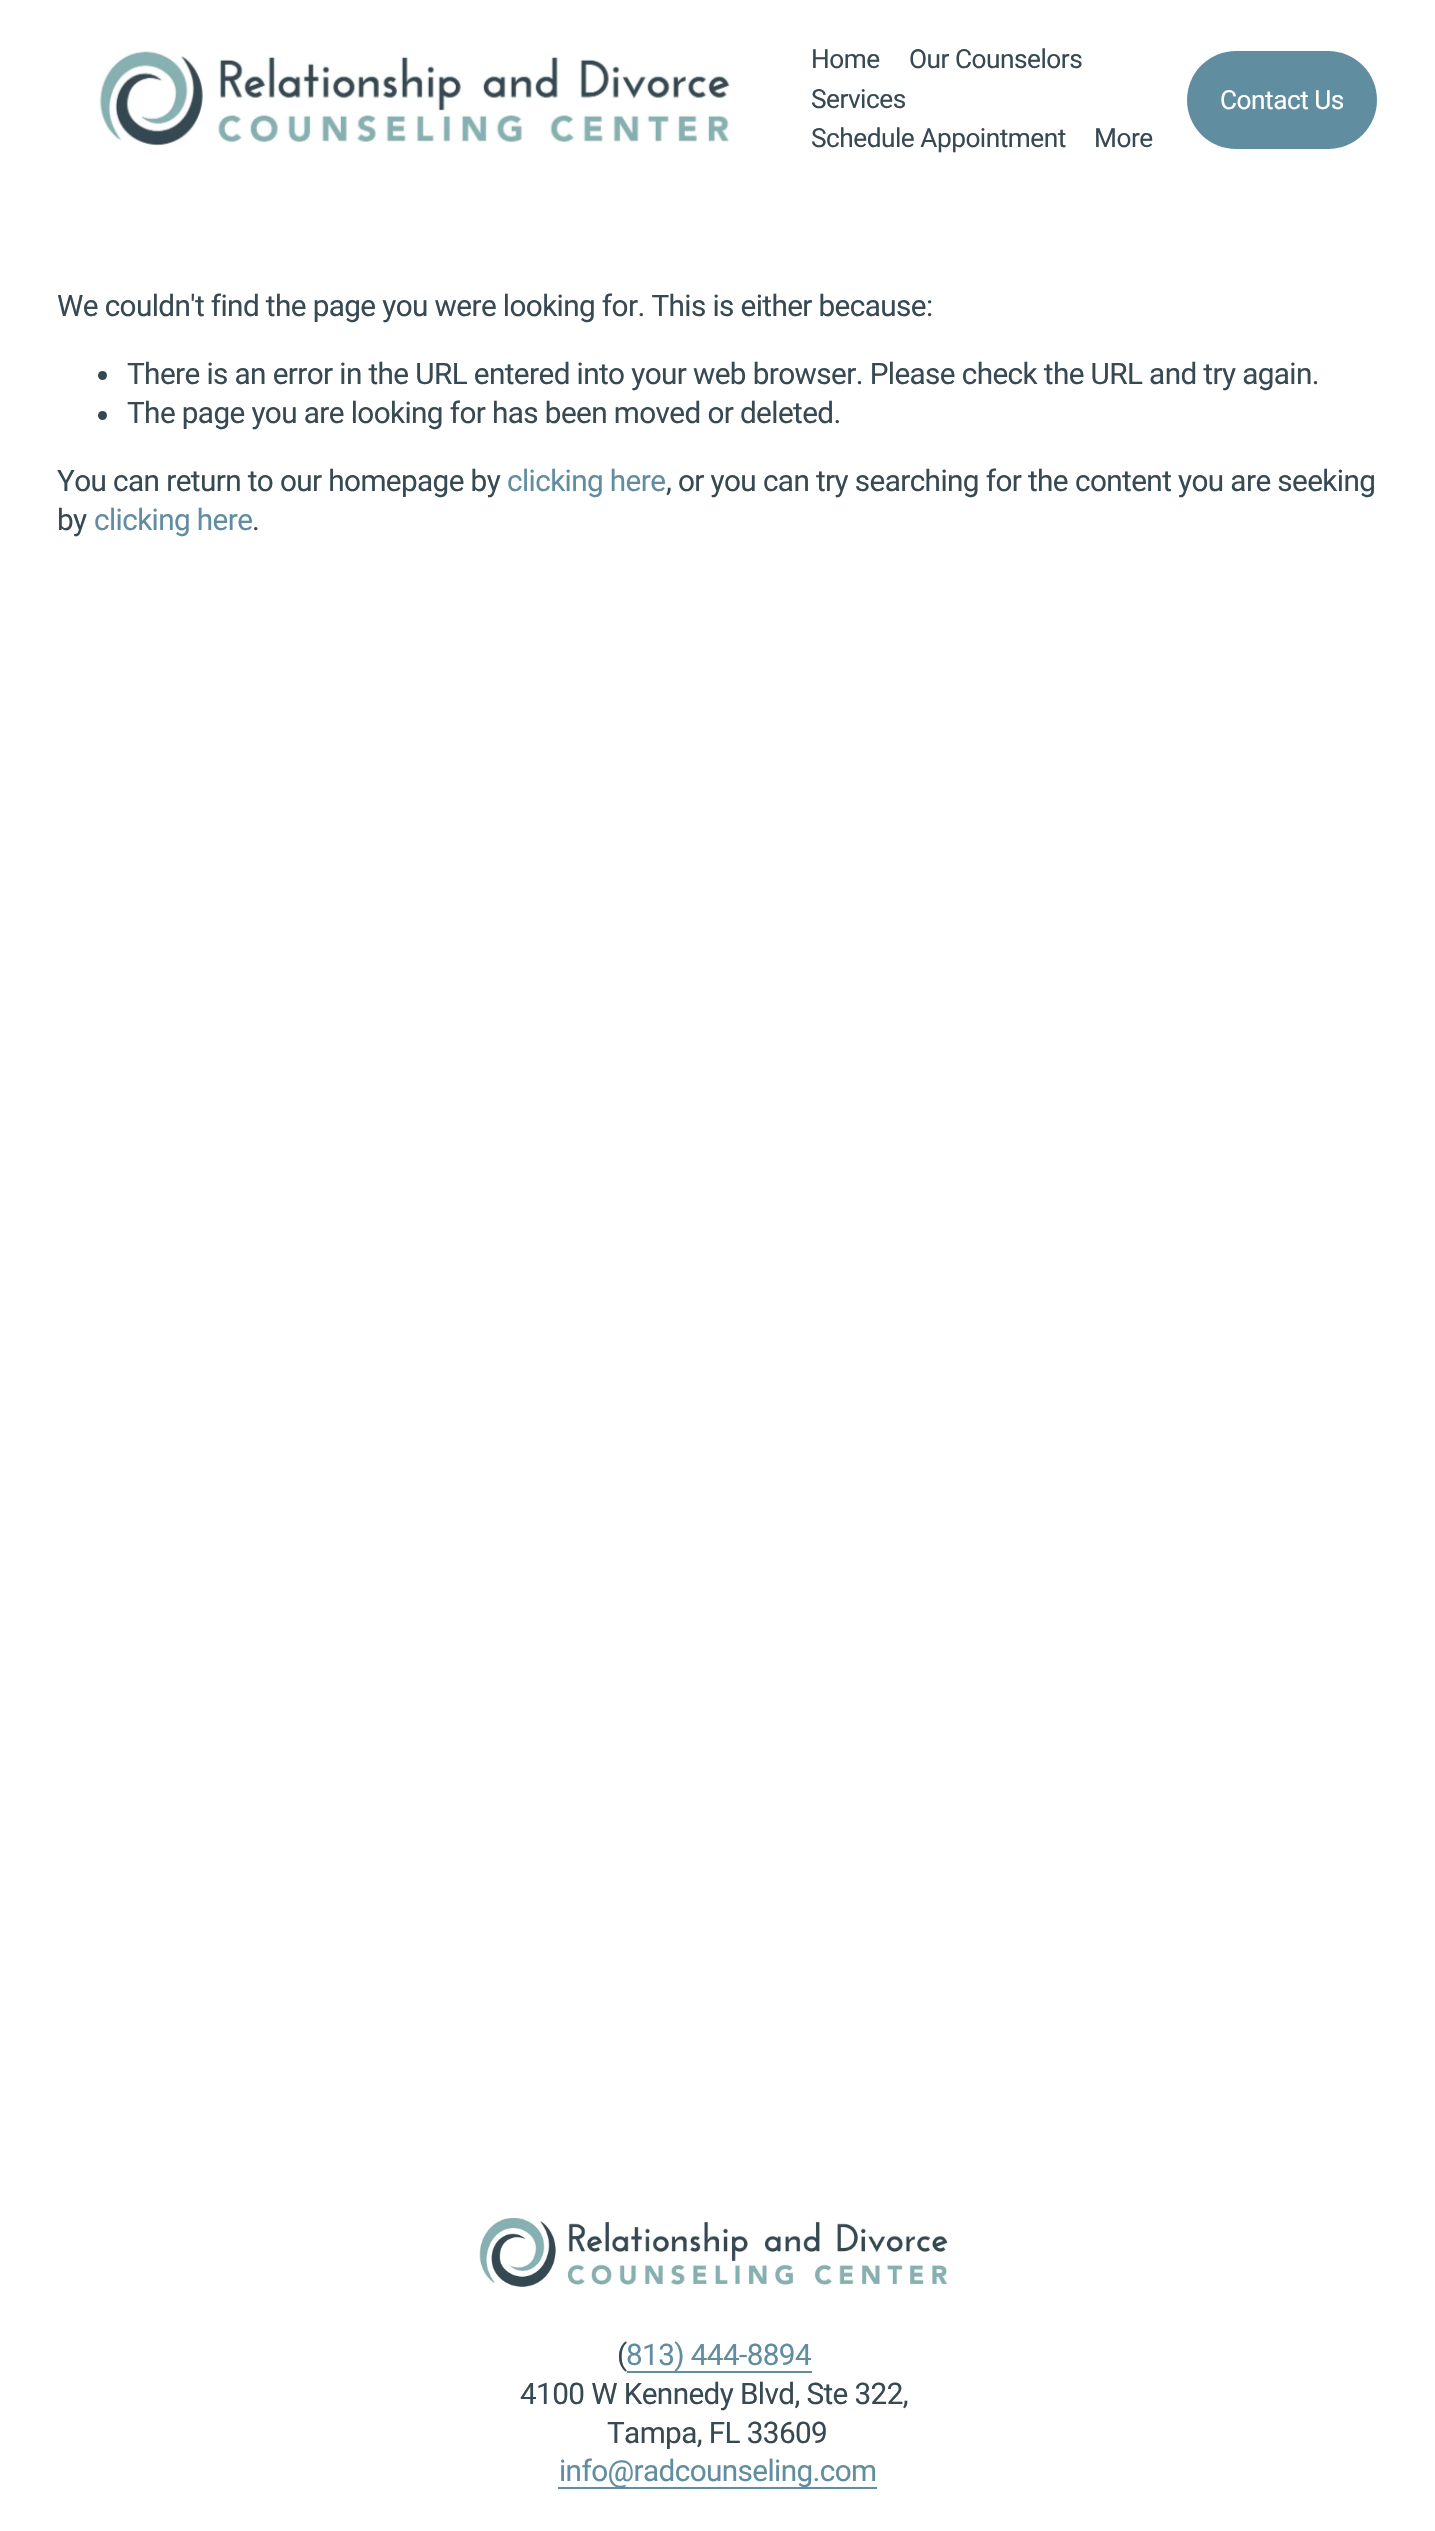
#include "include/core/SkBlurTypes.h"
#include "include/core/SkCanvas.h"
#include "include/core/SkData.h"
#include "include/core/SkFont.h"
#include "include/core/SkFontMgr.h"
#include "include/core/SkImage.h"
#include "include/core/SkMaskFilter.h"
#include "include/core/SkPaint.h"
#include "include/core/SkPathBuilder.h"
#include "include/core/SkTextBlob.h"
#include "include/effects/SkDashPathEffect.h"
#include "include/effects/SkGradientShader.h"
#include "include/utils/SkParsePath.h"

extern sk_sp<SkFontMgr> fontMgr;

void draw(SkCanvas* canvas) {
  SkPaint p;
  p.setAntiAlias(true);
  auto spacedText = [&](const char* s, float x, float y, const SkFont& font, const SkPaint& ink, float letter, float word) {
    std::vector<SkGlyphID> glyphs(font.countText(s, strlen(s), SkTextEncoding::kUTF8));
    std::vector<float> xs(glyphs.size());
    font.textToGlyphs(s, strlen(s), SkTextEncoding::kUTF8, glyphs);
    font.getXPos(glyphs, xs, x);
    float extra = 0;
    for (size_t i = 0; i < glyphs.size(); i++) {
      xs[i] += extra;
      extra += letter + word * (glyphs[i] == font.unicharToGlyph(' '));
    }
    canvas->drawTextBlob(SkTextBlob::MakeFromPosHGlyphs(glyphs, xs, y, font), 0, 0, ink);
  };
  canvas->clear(SK_ColorWHITE);
  canvas->drawImageRect(SkImages::DeferredFromEncodedData(SkData::MakeFromFileName("images/1.png")), SkRect::MakeLTRB(99, 51, 730, 146), SkSamplingOptions());
  p.setColor(SkColorSetRGB(96, 141, 159));
  canvas->drawRoundRect(SkRect::MakeLTRB(1187, 51, 1377, 149), 49, 49, p);
  p.setColor(SkColorSetRGB(51, 73, 82));
  canvas->drawCircle(102.5f, 375.5f, 4.5f, p);
  canvas->drawCircle(102.5f, 415.5f, 4.5f, p);
  canvas->drawImageRect(SkImages::DeferredFromEncodedData(SkData::MakeFromFileName("images/2.png")), SkRect::MakeLTRB(479, 2217, 948, 2287), SkSamplingOptions());
  p.setColor(SkColorSetRGB(96, 141, 159));
  canvas->drawRect(SkRect::MakeLTRB(627, 2371, 812, 2373), p);
  canvas->drawRect(SkRect::MakeLTRB(558, 2487, 877, 2489), p);
  SkFont font1(fontMgr->matchFamilyStyle("Roboto", SkFontStyle::Normal()), 26.25f);
  font1.setSubpixel(true);
  p.setColor(SkColorSetRGB(55, 73, 82));
  spacedText("Home", 811, 68, font1, p, -0.5f, 0);
  spacedText("Our Counselors", 909, 68, font1, p, -0.5f, 0);
  spacedText("Services", 811, 108, font1, p, -0.5f, 0);
  spacedText("Schedule Appointment", 811, 147, font1, p, -0.5f, 0);
  spacedText("More", 1094, 147, font1, p, -0.5f, 0);
  p.setColor(SK_ColorWHITE);
  spacedText("Contact Us", 1220, 109, font1, p, -0.5f, 0);
  SkFont font2(fontMgr->matchFamilyStyle("Roboto", SkFontStyle::Normal()), 29.7f);
  font2.setSubpixel(true);
  p.setColor(SkColorSetRGB(55, 73, 82));
  spacedText("We couldn't find the page you were looking for. This is either because:", 57, 316, font2, p, -0.6f, 0);
  spacedText("There is an error in the URL entered into your web browser. Please check the URL and try again.", 127, 384, font2, p, -0.6f, 0);
  spacedText("The page you are looking for has been moved or deleted.", 127, 423, font2, p, -0.6f, 0);
  spacedText("You can return to our homepage by", 57, 491, font2, p, -0.6f, 0);
  p.setColor(SkColorSetRGB(96, 141, 159));
  spacedText("clicking here", 507, 491, font2, p, -0.6f, 0);
  p.setColor(SkColorSetRGB(55, 73, 82));
  spacedText(", or you can try searching for the", 666, 491, font2, p, -0.6f, 0);
  spacedText("content you are seeking", 1075, 491, font2, p, -0.6f, 0);
  spacedText("by", 57, 530, font2, p, -0.6f, 0);
  p.setColor(SkColorSetRGB(96, 141, 159));
  spacedText("clicking here", 94, 530, font2, p, -0.6f, 0);
  p.setColor(SkColorSetRGB(55, 73, 82));
  spacedText(".", 252, 530, font2, p, -0.6f, 0);
  spacedText("(", 617, 2365, font2, p, -0.6f, 0);
  p.setColor(SkColorSetRGB(96, 141, 159));
  spacedText("813) 444-8894", 626, 2365, font2, p, -0.6f, 0);
  p.setColor(SkColorSetRGB(55, 73, 82));
  spacedText("4100 W Kennedy Blvd, Ste 322,", 520, 2404, font2, p, -0.6f, 0);
  spacedText("Tampa, FL 33609", 607, 2443, font2, p, -0.6f, 0);
  p.setColor(SkColorSetRGB(96, 141, 159));
  spacedText("info@radcounseling.com", 559, 2481, font2, p, -0.6f, 0);
}
